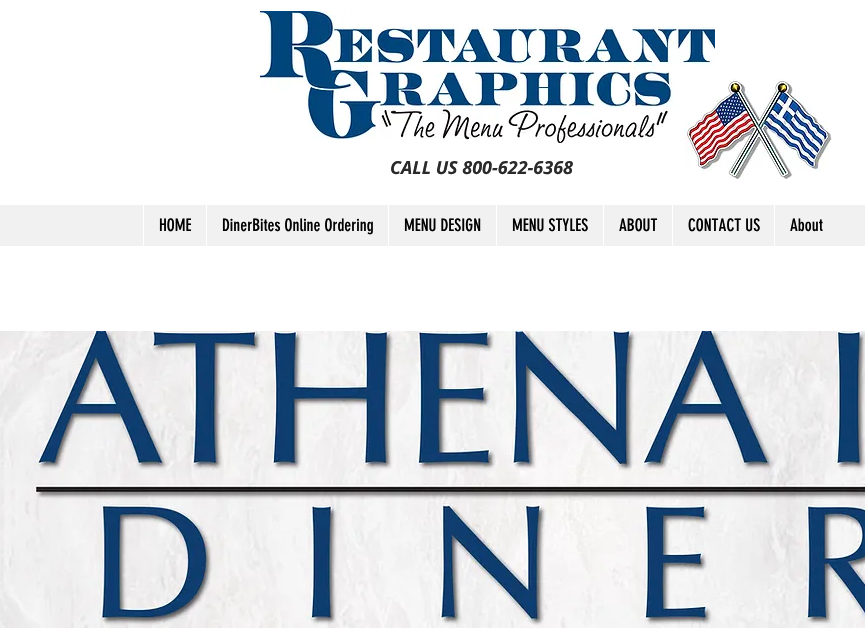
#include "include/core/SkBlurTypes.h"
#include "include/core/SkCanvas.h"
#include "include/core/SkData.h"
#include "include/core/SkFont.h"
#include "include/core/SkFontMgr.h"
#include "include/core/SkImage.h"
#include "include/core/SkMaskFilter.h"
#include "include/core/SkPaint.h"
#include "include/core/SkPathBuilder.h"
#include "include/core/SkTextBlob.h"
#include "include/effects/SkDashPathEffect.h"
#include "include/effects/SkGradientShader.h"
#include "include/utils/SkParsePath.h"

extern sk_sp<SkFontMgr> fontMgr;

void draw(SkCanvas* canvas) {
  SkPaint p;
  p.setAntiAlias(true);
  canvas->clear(SK_ColorWHITE);
  canvas->drawImageRect(SkImages::DeferredFromEncodedData(SkData::MakeFromFileName("images/1.png")), SkRect::MakeLTRB(260, 11, 715, 143), SkSamplingOptions());
  canvas->drawImageRect(SkImages::DeferredFromEncodedData(SkData::MakeFromFileName("images/2.png")), SkRect::MakeLTRB(684, 79, 832, 179), SkSamplingOptions());
  p.setColor(SkColorSetRGB(241, 241, 241));
  canvas->drawRect(SkRect::MakeLTRB(0, 205, 865, 246), p);
  p.setColor(SK_ColorWHITE);
  canvas->drawRect(SkRect::MakeLTRB(143, 205, 144, 246), p);
  canvas->drawRect(SkRect::MakeLTRB(206, 205, 207, 246), p);
  canvas->drawRect(SkRect::MakeLTRB(388, 205, 389, 246), p);
  canvas->drawRect(SkRect::MakeLTRB(496, 205, 497, 246), p);
  canvas->drawRect(SkRect::MakeLTRB(603, 205, 604, 246), p);
  canvas->drawRect(SkRect::MakeLTRB(672, 205, 673, 246), p);
  canvas->drawRect(SkRect::MakeLTRB(774, 205, 775, 246), p);
  canvas->drawImageRect(SkImages::DeferredFromEncodedData(SkData::MakeFromFileName("images/3.png")), SkRect::MakeLTRB(0, 331, 865, 628), SkSamplingOptions());
  SkFont font1(fontMgr->matchFamilyStyle("Open Sans", SkFontStyle::BoldItalic()), 18);
  font1.setSubpixel(true);
  p.setColor(SkColorSetRGB(42, 42, 42));
  canvas->drawString("CALL US 800-622-6368", 390, 174, font1, p);
  SkFont font2(fontMgr->matchFamilyStyle("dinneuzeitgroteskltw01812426", SkFontStyle::Normal()), 17);
  font2.setSubpixel(true);
  p.setColor(SK_ColorBLACK);
  canvas->drawString("HOME", 159, 231, font2, p);
  canvas->drawString("DinerBites Online Ordering", 222, 231, font2, p);
  canvas->drawString("MENU DESIGN", 404, 231, font2, p);
  canvas->drawString("MENU STYLES", 512, 231, font2, p);
  canvas->drawString("ABOUT", 619, 231, font2, p);
  canvas->drawString("CONTACT US", 688, 231, font2, p);
  canvas->drawString("About", 790, 231, font2, p);
}
